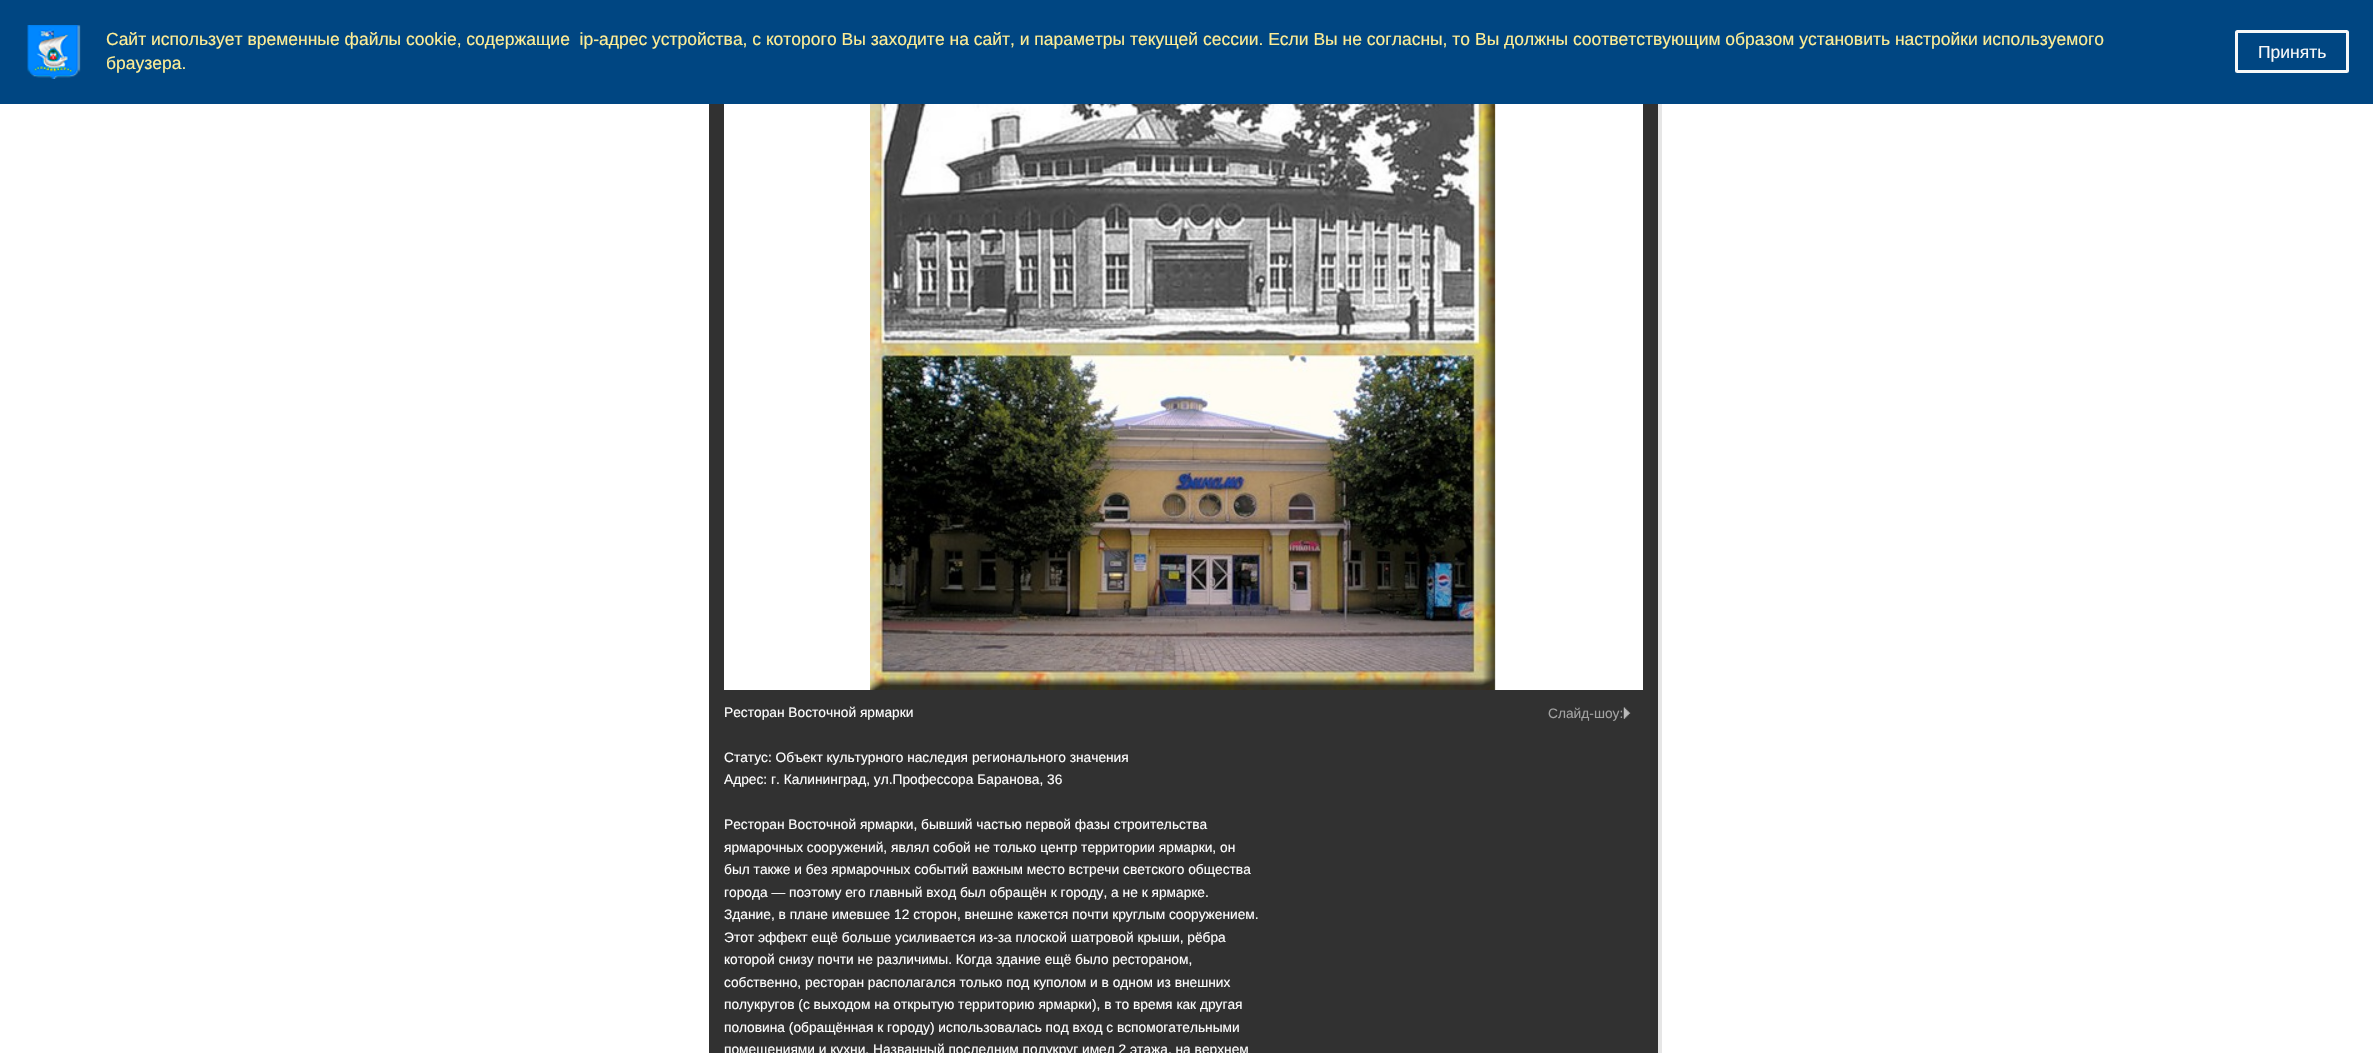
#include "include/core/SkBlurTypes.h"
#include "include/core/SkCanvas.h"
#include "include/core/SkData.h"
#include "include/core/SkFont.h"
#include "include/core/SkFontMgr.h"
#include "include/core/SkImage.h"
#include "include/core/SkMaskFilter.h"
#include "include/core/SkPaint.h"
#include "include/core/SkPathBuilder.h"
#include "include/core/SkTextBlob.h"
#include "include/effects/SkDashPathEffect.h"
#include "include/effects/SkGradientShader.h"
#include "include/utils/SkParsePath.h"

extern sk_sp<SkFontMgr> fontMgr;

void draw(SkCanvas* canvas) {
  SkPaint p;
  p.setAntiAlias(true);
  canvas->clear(SK_ColorWHITE);
  p.setColor(SkColorSetRGB(0, 70, 130));
  canvas->drawRect(SkRect::MakeLTRB(0, 0, 2373, 104), p);
  canvas->drawImageRect(SkImages::DeferredFromEncodedData(SkData::MakeFromFileName("images/1.png")), SkRect::MakeLTRB(27, 25, 81, 79), SkSamplingOptions());
  p.setStyle(SkPaint::kStroke_Style);
  p.setStrokeWidth(3);
  p.setColor(SkColorSetRGB(248, 248, 248));
  canvas->drawRoundRect(SkRect::MakeLTRB(2236.5f, 31.5f, 2347.5f, 71.5f), 1, 1, p);
  p.setStyle(SkPaint::kFill_Style);
  p.setColor(SkColorSetRGB(230, 230, 230));
  canvas->drawRect(SkRect::MakeLTRB(1658, 104, 1662, 1053), p);
  p.setColor(SkColorSetRGB(49, 49, 49));
  canvas->drawRect(SkRect::MakeLTRB(709, 104, 1658, 1053), p);
  p.setColor(SK_ColorWHITE);
  canvas->drawRect(SkRect::MakeLTRB(724, 104, 1643, 690), p);
  canvas->drawImageRect(SkImages::DeferredFromEncodedData(SkData::MakeFromFileName("images/2.png")), SkRect::MakeLTRB(870, 104, 1496, 690), SkSamplingOptions());
  canvas->drawImageRect(SkImages::DeferredFromEncodedData(SkData::MakeFromFileName("images/3.png")), SkRect::MakeLTRB(1623, 707, 1631, 719), SkSamplingOptions());
  SkFont font1(fontMgr->matchFamilyStyle("Liberation Sans", SkFontStyle::Normal()), 17.5f);
  font1.setSubpixel(true);
  p.setColor(SkColorSetRGB(255, 238, 149));
  canvas->drawString("Сайт использует временные файлы cookie, содержащие  ip-адрес устройства, с которого Вы заходите на сайт, и параметры текущей сессии. Если Вы не согласны, то Вы должны соответствующим образом установить настройки используемого", 106, 45, font1, p);
  canvas->drawString("браузера.", 106, 69, font1, p);
  p.setColor(SkColorSetRGB(248, 248, 248));
  canvas->drawString("Принять", 2258, 58, font1, p);
  SkFont font2(fontMgr->matchFamilyStyle("Liberation Sans", SkFontStyle::Normal()), 13.75f);
  font2.setSubpixel(true);
  p.setColor(SK_ColorWHITE);
  canvas->drawString("Ресторан Восточной ярмарки", 724, 717, font2, p);
  canvas->drawString("Статус: Объект культурного наследия регионального значения", 724, 762, font2, p);
  canvas->drawString("Адрес: г. Калининград, ул.Профессора Баранова, 36", 724, 784, font2, p);
  canvas->drawString("Ресторан Восточной ярмарки, бывший частью первой фазы строительства", 724, 829, font2, p);
  canvas->drawString("ярмарочных сооружений, являл собой не только центр территории ярмарки, он", 724, 852, font2, p);
  canvas->drawString("был также и без ярмарочных событий важным место встречи светского общества", 724, 874, font2, p);
  canvas->drawString("города — поэтому его главный вход был обращён к городу, а не к ярмарке.", 724, 897, font2, p);
  canvas->drawString("Здание, в плане имевшее 12 сторон, внешне кажется почти круглым сооружением.", 724, 919, font2, p);
  canvas->drawString("Этот эффект ещё больше усиливается из-за плоской шатровой крыши, рёбра", 724, 942, font2, p);
  canvas->drawString("которой снизу почти не различимы. Когда здание ещё было рестораном,", 724, 964, font2, p);
  canvas->drawString("собственно, ресторан располагался только под куполом и в одном из внешних", 724, 987, font2, p);
  canvas->drawString("полукругов (с выходом на открытую территорию ярмарки), в то время как другая", 724, 1009, font2, p);
  canvas->drawString("половина (обращённая к городу) использовалась под вход с вспомогательными", 724, 1032, font2, p);
  canvas->drawString("помещениями и кухни. Названный последним полукруг имел 2 этажа, на верхнем", 724, 1054, font2, p);
  p.setColor(SkColorSetRGB(162, 162, 162));
  canvas->drawString("Слайд-шоу:", 1548, 718, font2, p);
}
